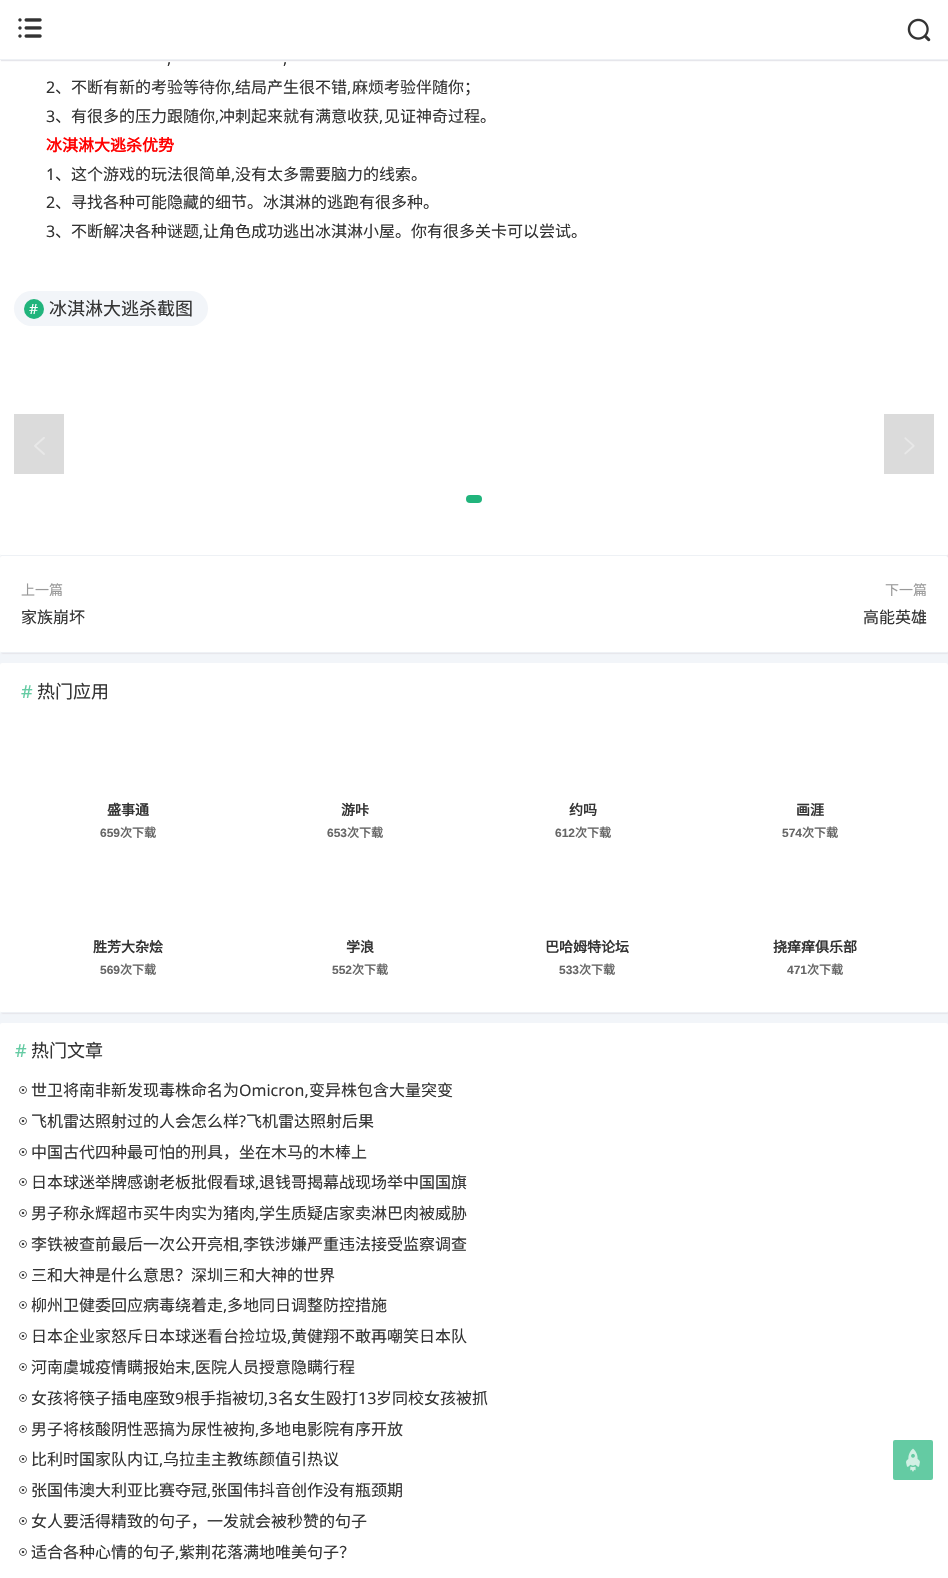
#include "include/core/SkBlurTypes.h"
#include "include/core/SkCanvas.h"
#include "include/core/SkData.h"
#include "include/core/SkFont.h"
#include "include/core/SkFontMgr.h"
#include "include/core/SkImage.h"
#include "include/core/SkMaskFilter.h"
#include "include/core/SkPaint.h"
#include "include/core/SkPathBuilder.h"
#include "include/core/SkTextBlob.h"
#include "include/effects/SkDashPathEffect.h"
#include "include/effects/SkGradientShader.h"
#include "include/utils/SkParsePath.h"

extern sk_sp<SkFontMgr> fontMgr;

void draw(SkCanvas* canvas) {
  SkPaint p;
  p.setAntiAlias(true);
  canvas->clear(SkColorSetRGB(242, 245, 249));
  p.setColor(SkColorSetRGB(230, 230, 235));
  p.setMaskFilter(SkMaskFilter::MakeBlur(kNormal_SkBlurStyle, 0.5f));
  canvas->drawRoundRect(SkRect::MakeLTRB(1, -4, 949, 557), 2, 2, p);
  p.setMaskFilter(nullptr);
  p.setColor(SK_ColorWHITE);
  canvas->drawRoundRect(SkRect::MakeLTRB(0, -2, 948, 556), 2, 2, p);
  p.setColor(SkColorSetRGB(230, 230, 235));
  p.setMaskFilter(SkMaskFilter::MakeBlur(kNormal_SkBlurStyle, 0.5f));
  canvas->drawRect(SkRect::MakeLTRB(1, 1, 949, 61), p);
  p.setMaskFilter(nullptr);
  p.setColor(SK_ColorWHITE);
  canvas->drawRect(SkRect::MakeLTRB(0, 0, 948, 59), p);
  p.setColor(SkColorSetRGB(238, 241, 245));
  canvas->drawRect(SkRect::MakeLTRB(0, 59, 948, 60), p);
  canvas->drawImageRect(SkImages::DeferredFromEncodedData(SkData::MakeFromFileName("images/1.png")), SkRect::MakeLTRB(18, 18, 42, 38), SkSamplingOptions());
  canvas->drawImageRect(SkImages::DeferredFromEncodedData(SkData::MakeFromFileName("images/2.png")), SkRect::MakeLTRB(907, 18, 931, 42), SkSamplingOptions());
  canvas->drawRect(SkRect::MakeLTRB(1, 555, 947, 556), p);
  p.setColor(SkColorSetRGB(242, 245, 249));
  canvas->drawRoundRect(SkRect::MakeLTRB(14, 291, 208, 326), 17.5f, 17.5f, p);
  p.setColor(SkColorSetRGB(33, 180, 124));
  canvas->drawCircle(34, 309, 10, p);
  p.setColor(SkColorSetRGB(219, 219, 219));
  canvas->drawRect(SkRect::MakeLTRB(14, 414, 64, 474), p);
  canvas->drawImageRect(SkImages::DeferredFromEncodedData(SkData::MakeFromFileName("images/3.png")), SkRect::MakeLTRB(34, 437, 45, 455), SkSamplingOptions());
  canvas->drawRect(SkRect::MakeLTRB(884, 414, 934, 474), p);
  canvas->drawImageRect(SkImages::DeferredFromEncodedData(SkData::MakeFromFileName("images/4.png")), SkRect::MakeLTRB(904, 437, 915, 455), SkSamplingOptions());
  p.setColor(SkColorSetRGB(33, 180, 124));
  canvas->drawRoundRect(SkRect::MakeLTRB(466, 495, 482, 503), 4, 4, p);
  p.setColor(SkColorSetRGB(230, 230, 235));
  p.setMaskFilter(SkMaskFilter::MakeBlur(kNormal_SkBlurStyle, 0.5f));
  canvas->drawRoundRect(SkRect::MakeLTRB(1, 557, 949, 654), 2, 2, p);
  p.setMaskFilter(nullptr);
  p.setColor(SK_ColorWHITE);
  canvas->drawRoundRect(SkRect::MakeLTRB(0, 556, 948, 653), 2, 2, p);
  p.setColor(SkColorSetRGB(238, 241, 245));
  canvas->drawRect(SkRect::MakeLTRB(1, 652, 947, 653), p);
  p.setColor(SkColorSetRGB(230, 230, 235));
  p.setMaskFilter(SkMaskFilter::MakeBlur(kNormal_SkBlurStyle, 0.5f));
  canvas->drawRoundRect(SkRect::MakeLTRB(1, 664, 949, 1014), 2, 2, p);
  p.setMaskFilter(nullptr);
  p.setColor(SK_ColorWHITE);
  canvas->drawRoundRect(SkRect::MakeLTRB(0, 663, 948, 1013), 2, 2, p);
  p.setColor(SkColorSetRGB(238, 241, 245));
  canvas->drawRect(SkRect::MakeLTRB(1, 1012, 947, 1013), p);
  p.setColor(SK_ColorWHITE);
  canvas->drawRoundRect(SkRect::MakeLTRB(0, 1023, 948, 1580), 2, 2, p);
  canvas->drawImageRect(SkImages::DeferredFromEncodedData(SkData::MakeFromFileName("images/5.png")), SkRect::MakeLTRB(19, 1086, 27, 1094), SkSamplingOptions());
  canvas->drawImageRect(SkImages::DeferredFromEncodedData(SkData::MakeFromFileName("images/5.png")), SkRect::MakeLTRB(19, 1117, 27, 1125), SkSamplingOptions());
  canvas->drawImageRect(SkImages::DeferredFromEncodedData(SkData::MakeFromFileName("images/5.png")), SkRect::MakeLTRB(19, 1148, 27, 1156), SkSamplingOptions());
  canvas->drawImageRect(SkImages::DeferredFromEncodedData(SkData::MakeFromFileName("images/5.png")), SkRect::MakeLTRB(19, 1178, 27, 1186), SkSamplingOptions());
  canvas->drawImageRect(SkImages::DeferredFromEncodedData(SkData::MakeFromFileName("images/5.png")), SkRect::MakeLTRB(19, 1209, 27, 1217), SkSamplingOptions());
  canvas->drawImageRect(SkImages::DeferredFromEncodedData(SkData::MakeFromFileName("images/5.png")), SkRect::MakeLTRB(19, 1240, 27, 1248), SkSamplingOptions());
  canvas->drawImageRect(SkImages::DeferredFromEncodedData(SkData::MakeFromFileName("images/5.png")), SkRect::MakeLTRB(19, 1271, 27, 1279), SkSamplingOptions());
  canvas->drawImageRect(SkImages::DeferredFromEncodedData(SkData::MakeFromFileName("images/5.png")), SkRect::MakeLTRB(19, 1301, 27, 1309), SkSamplingOptions());
  canvas->drawImageRect(SkImages::DeferredFromEncodedData(SkData::MakeFromFileName("images/5.png")), SkRect::MakeLTRB(19, 1332, 27, 1340), SkSamplingOptions());
  canvas->drawImageRect(SkImages::DeferredFromEncodedData(SkData::MakeFromFileName("images/5.png")), SkRect::MakeLTRB(19, 1363, 27, 1371), SkSamplingOptions());
  canvas->drawImageRect(SkImages::DeferredFromEncodedData(SkData::MakeFromFileName("images/5.png")), SkRect::MakeLTRB(19, 1394, 27, 1402), SkSamplingOptions());
  canvas->drawImageRect(SkImages::DeferredFromEncodedData(SkData::MakeFromFileName("images/5.png")), SkRect::MakeLTRB(19, 1425, 27, 1433), SkSamplingOptions());
  canvas->drawImageRect(SkImages::DeferredFromEncodedData(SkData::MakeFromFileName("images/5.png")), SkRect::MakeLTRB(19, 1455, 27, 1463), SkSamplingOptions());
  canvas->drawImageRect(SkImages::DeferredFromEncodedData(SkData::MakeFromFileName("images/5.png")), SkRect::MakeLTRB(19, 1486, 27, 1494), SkSamplingOptions());
  canvas->drawImageRect(SkImages::DeferredFromEncodedData(SkData::MakeFromFileName("images/5.png")), SkRect::MakeLTRB(19, 1517, 27, 1525), SkSamplingOptions());
  canvas->drawImageRect(SkImages::DeferredFromEncodedData(SkData::MakeFromFileName("images/5.png")), SkRect::MakeLTRB(19, 1548, 27, 1556), SkSamplingOptions());
  p.setColor(SkColorSetRGB(100, 203, 163));
  canvas->drawRoundRect(SkRect::MakeLTRB(893, 1440, 933, 1480), 2, 2, p);
  canvas->drawImageRect(SkImages::DeferredFromEncodedData(SkData::MakeFromFileName("images/6.png")), SkRect::MakeLTRB(906, 1448, 920, 1472), SkSamplingOptions());
  SkFont font1(fontMgr->matchFamilyStyle("Noto Sans", SkFontStyle::Normal()), 16);
  font1.setSubpixel(true);
  p.setColor(SkColorSetRGB(51, 51, 51));
  canvas->drawString(",", 167, 64, font1, p);
  canvas->drawString(",", 283, 64, font1, p);
  canvas->drawString("2", 46, 93, font1, p);
  SkFont font2(fontMgr->matchFamilyStyle("Noto Sans CJK SC", SkFontStyle::Normal()), 16);
  font2.setSubpixel(true);
  canvas->drawString("、不断有新的考验等待你", 55, 93, font2, p);
  canvas->drawString("结局产生很不错", 235, 93, font2, p);
  canvas->drawString("麻烦考验伴随你；", 352, 93, font2, p);
  canvas->drawString(",", 231, 93, font1, p);
  canvas->drawString(",", 347, 93, font1, p);
  canvas->drawString("3", 46, 122, font1, p);
  canvas->drawString("、有很多的压力跟随你", 55, 122, font2, p);
  canvas->drawString(",", 215, 122, font1, p);
  canvas->drawString("冲刺起来就有满意收获", 219, 122, font2, p);
  canvas->drawString(",", 379, 122, font1, p);
  canvas->drawString("见证神奇过程。", 384, 122, font2, p);
  SkFont font3(fontMgr->matchFamilyStyle("Noto Sans CJK SC", SkFontStyle::Bold()), 16);
  font3.setSubpixel(true);
  p.setColor(SkColorSetRGB(255, 0, 0));
  canvas->drawString("冰淇淋大逃杀优势", 46, 151, font3, p);
  p.setColor(SkColorSetRGB(51, 51, 51));
  canvas->drawString("1", 46, 180, font1, p);
  canvas->drawString("、这个游戏的玩法很简单", 55, 180, font2, p);
  canvas->drawString("没有太多需要脑力的线索。", 235, 180, font2, p);
  canvas->drawString(",", 231, 180, font1, p);
  canvas->drawString("2", 46, 208, font1, p);
  canvas->drawString("、寻找各种可能隐藏的细节。冰淇淋的逃跑有很多种。", 55, 208, font2, p);
  canvas->drawString("3", 46, 237, font1, p);
  canvas->drawString("、不断解决各种谜题", 55, 237, font2, p);
  canvas->drawString(",", 199, 237, font1, p);
  canvas->drawString("让角色成功逃出冰淇淋小屋。你有很多关卡可以尝试。", 203, 237, font2, p);
  SkFont font4(fontMgr->matchFamilyStyle("Noto Sans", SkFontStyle::Normal()), 14);
  font4.setSubpixel(true);
  p.setColor(SK_ColorWHITE);
  canvas->drawString("#", 29, 314, font4, p);
  SkFont font5(fontMgr->matchFamilyStyle("Noto Sans CJK SC", SkFontStyle::Normal()), 18);
  font5.setSubpixel(true);
  p.setColor(SkColorSetRGB(51, 51, 51));
  canvas->drawString("冰淇淋大逃杀截图", 49, 315, font5, p);
  SkFont font6(fontMgr->matchFamilyStyle("Noto Sans CJK SC", SkFontStyle::Normal()), 14);
  font6.setSubpixel(true);
  p.setColor(SkColorSetRGB(153, 153, 153));
  canvas->drawString("上一篇", 21, 595, font6, p);
  p.setColor(SkColorSetRGB(51, 51, 51));
  canvas->drawString("家族崩坏", 21, 623, font2, p);
  p.setColor(SkColorSetRGB(153, 153, 153));
  canvas->drawString("下一篇", 885, 595, font6, p);
  p.setColor(SkColorSetRGB(51, 51, 51));
  canvas->drawString("高能英雄", 863, 623, font2, p);
  SkFont font7(fontMgr->matchFamilyStyle("Noto Sans", SkFontStyle::Normal()), 18);
  font7.setSubpixel(true);
  p.setColor(SkColorSetRGB(100, 203, 163));
  canvas->drawString("#", 21, 698, font7, p);
  p.setColor(SkColorSetRGB(51, 51, 51));
  canvas->drawString("热门应用", 37, 698, font5, p);
  SkFont font8(fontMgr->matchFamilyStyle("Noto Sans CJK SC", SkFontStyle::Bold()), 14);
  font8.setSubpixel(true);
  canvas->drawString("盛事通", 107, 815, font8, p);
  SkFont font9(fontMgr->matchFamilyStyle("Liberation Sans", SkFontStyle::Bold()), 12);
  font9.setSubpixel(true);
  p.setColor(SkColorSetRGB(102, 102, 102));
  canvas->drawString("659", 100, 837, font9, p);
  SkFont font10(fontMgr->matchFamilyStyle("Noto Sans CJK SC", SkFontStyle::Bold()), 12);
  font10.setSubpixel(true);
  canvas->drawString("次下载", 120, 837, font10, p);
  p.setColor(SkColorSetRGB(51, 51, 51));
  canvas->drawString("游咔", 341, 815, font8, p);
  p.setColor(SkColorSetRGB(102, 102, 102));
  canvas->drawString("653", 327, 837, font9, p);
  canvas->drawString("次下载", 347, 837, font10, p);
  p.setColor(SkColorSetRGB(51, 51, 51));
  canvas->drawString("约吗", 569, 815, font8, p);
  p.setColor(SkColorSetRGB(102, 102, 102));
  canvas->drawString("612", 555, 837, font9, p);
  canvas->drawString("次下载", 575, 837, font10, p);
  p.setColor(SkColorSetRGB(51, 51, 51));
  canvas->drawString("画涯", 796, 815, font8, p);
  p.setColor(SkColorSetRGB(102, 102, 102));
  canvas->drawString("574", 782, 837, font9, p);
  canvas->drawString("次下载", 802, 837, font10, p);
  p.setColor(SkColorSetRGB(51, 51, 51));
  canvas->drawString("胜芳大杂烩", 93, 952, font8, p);
  p.setColor(SkColorSetRGB(102, 102, 102));
  canvas->drawString("569", 100, 974, font9, p);
  canvas->drawString("次下载", 120, 974, font10, p);
  p.setColor(SkColorSetRGB(51, 51, 51));
  canvas->drawString("学浪", 346, 952, font8, p);
  p.setColor(SkColorSetRGB(102, 102, 102));
  canvas->drawString("552", 332, 974, font9, p);
  canvas->drawString("次下载", 352, 974, font10, p);
  p.setColor(SkColorSetRGB(51, 51, 51));
  canvas->drawString("巴哈姆特论坛", 545, 952, font8, p);
  p.setColor(SkColorSetRGB(102, 102, 102));
  canvas->drawString("533", 559, 974, font9, p);
  canvas->drawString("次下载", 579, 974, font10, p);
  p.setColor(SkColorSetRGB(51, 51, 51));
  canvas->drawString("挠痒痒俱乐部", 773, 952, font8, p);
  p.setColor(SkColorSetRGB(102, 102, 102));
  canvas->drawString("471", 787, 974, font9, p);
  canvas->drawString("次下载", 807, 974, font10, p);
  p.setColor(SkColorSetRGB(100, 203, 163));
  canvas->drawString("#", 15, 1057, font7, p);
  p.setColor(SkColorSetRGB(51, 51, 51));
  canvas->drawString("热门文章", 31, 1057, font5, p);
  canvas->drawString("世卫将南非新发现毒株命名为", 31, 1096, font2, p);
  canvas->drawString("Omicron,", 239, 1096, font1, p);
  canvas->drawString("变异株包含大量突变", 309, 1096, font2, p);
  canvas->drawString("飞机雷达照射过的人会怎么样", 31, 1127, font2, p);
  canvas->drawString("?", 239, 1127, font1, p);
  canvas->drawString("飞机雷达照射后果", 246, 1127, font2, p);
  canvas->drawString("中国古代四种最可怕的刑具，坐在木马的木棒上", 31, 1158, font2, p);
  canvas->drawString("日本球迷举牌感谢老板批假看球", 31, 1188, font2, p);
  canvas->drawString("退钱哥揭幕战现场举中国国旗", 259, 1188, font2, p);
  canvas->drawString(",", 255, 1188, font1, p);
  canvas->drawString("男子称永辉超市买牛肉实为猪肉", 31, 1219, font2, p);
  canvas->drawString("学生质疑店家卖淋巴肉被威胁", 259, 1219, font2, p);
  canvas->drawString(",", 255, 1219, font1, p);
  canvas->drawString("李铁被查前最后一次公开亮相", 31, 1250, font2, p);
  canvas->drawString("李铁涉嫌严重违法接受监察调查", 243, 1250, font2, p);
  canvas->drawString(",", 239, 1250, font1, p);
  canvas->drawString("三和大神是什么意思？深圳三和大神的世界", 31, 1281, font2, p);
  canvas->drawString("柳州卫健委回应病毒绕着走", 31, 1311, font2, p);
  canvas->drawString("多地同日调整防控措施", 227, 1311, font2, p);
  canvas->drawString(",", 223, 1311, font1, p);
  canvas->drawString("日本企业家怒斥日本球迷看台捡垃圾", 31, 1342, font2, p);
  canvas->drawString("黄健翔不敢再嘲笑日本队", 291, 1342, font2, p);
  canvas->drawString(",", 287, 1342, font1, p);
  canvas->drawString("河南虞城疫情瞒报始末", 31, 1373, font2, p);
  canvas->drawString("医院人员授意隐瞒行程", 195, 1373, font2, p);
  canvas->drawString(",", 191, 1373, font1, p);
  canvas->drawString("女孩将筷子插电座致", 31, 1404, font2, p);
  canvas->drawString("9", 175, 1404, font1, p);
  canvas->drawString("根手指被切", 184, 1404, font2, p);
  canvas->drawString(",3", 264, 1404, font1, p);
  canvas->drawString("名女生殴打", 278, 1404, font2, p);
  canvas->drawString("13", 358, 1404, font1, p);
  canvas->drawString("岁同校女孩被抓", 376, 1404, font2, p);
  canvas->drawString("男子将核酸阴性恶搞为尿性被拘", 31, 1435, font2, p);
  canvas->drawString("多地电影院有序开放", 259, 1435, font2, p);
  canvas->drawString(",", 255, 1435, font1, p);
  canvas->drawString("比利时国家队内讧", 31, 1465, font2, p);
  canvas->drawString("乌拉圭主教练颜值引热议", 163, 1465, font2, p);
  canvas->drawString(",", 159, 1465, font1, p);
  canvas->drawString("张国伟澳大利亚比赛夺冠", 31, 1496, font2, p);
  canvas->drawString("张国伟抖音创作没有瓶颈期", 211, 1496, font2, p);
  canvas->drawString(",", 207, 1496, font1, p);
  canvas->drawString("女人要活得精致的句子，一发就会被秒赞的句子", 31, 1527, font2, p);
  canvas->drawString("适合各种心情的句子", 31, 1558, font2, p);
  canvas->drawString("紫荆花落满地唯美句子？", 179, 1558, font2, p);
  canvas->drawString(",", 175, 1558, font1, p);
}
